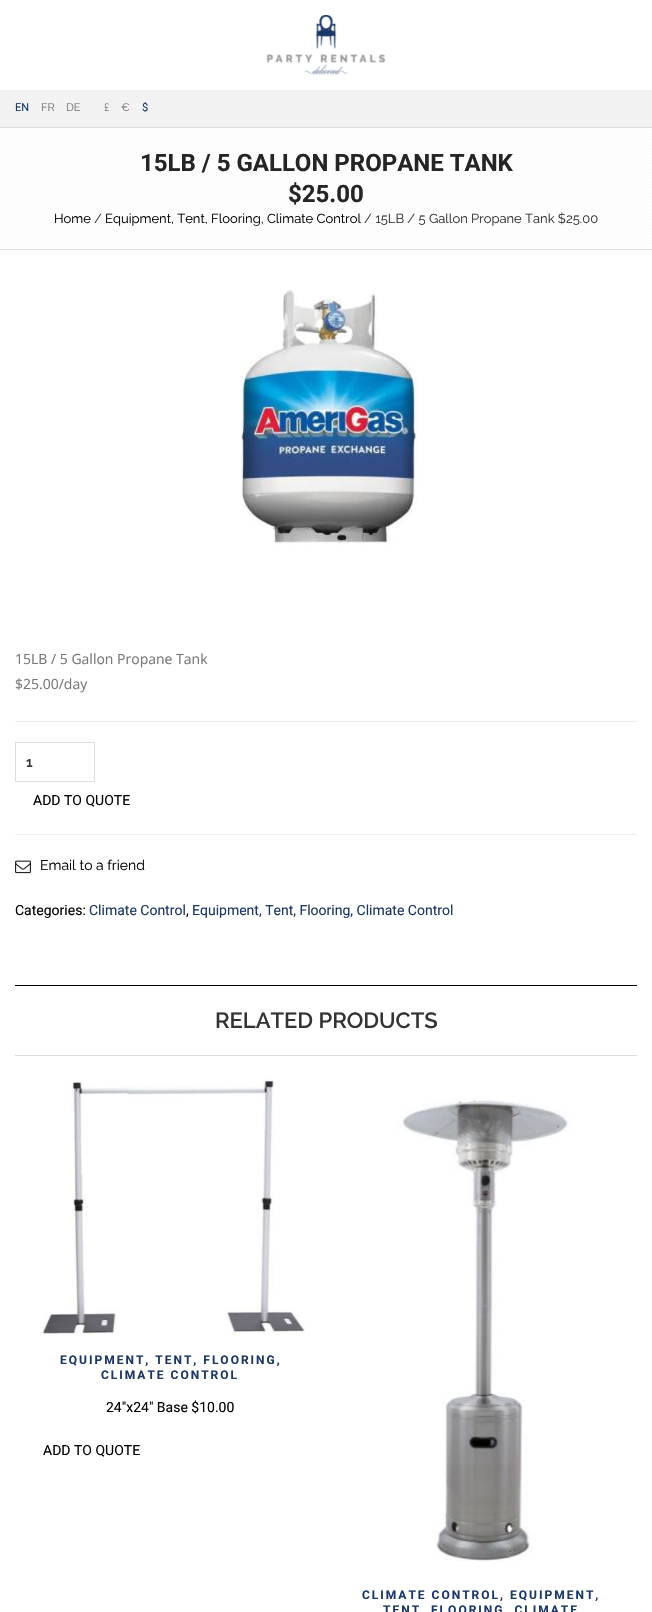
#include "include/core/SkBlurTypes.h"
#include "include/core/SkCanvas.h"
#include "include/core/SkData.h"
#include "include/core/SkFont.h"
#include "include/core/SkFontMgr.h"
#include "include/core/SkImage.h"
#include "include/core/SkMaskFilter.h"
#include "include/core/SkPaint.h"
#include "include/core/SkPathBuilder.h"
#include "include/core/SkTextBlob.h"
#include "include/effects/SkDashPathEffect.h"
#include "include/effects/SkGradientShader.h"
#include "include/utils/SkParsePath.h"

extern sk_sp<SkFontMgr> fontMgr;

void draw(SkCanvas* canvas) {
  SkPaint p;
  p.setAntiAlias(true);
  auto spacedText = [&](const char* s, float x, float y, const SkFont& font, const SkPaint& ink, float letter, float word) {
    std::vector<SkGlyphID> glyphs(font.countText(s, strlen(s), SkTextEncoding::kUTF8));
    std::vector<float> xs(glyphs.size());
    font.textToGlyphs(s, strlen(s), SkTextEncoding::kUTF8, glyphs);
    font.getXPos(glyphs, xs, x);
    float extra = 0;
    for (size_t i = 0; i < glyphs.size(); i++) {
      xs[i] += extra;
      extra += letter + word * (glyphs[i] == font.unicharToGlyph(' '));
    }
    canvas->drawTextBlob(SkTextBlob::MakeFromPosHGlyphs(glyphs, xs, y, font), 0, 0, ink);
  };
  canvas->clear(SK_ColorWHITE);
  canvas->drawImageRect(SkImages::DeferredFromEncodedData(SkData::MakeFromFileName("images/1.png")), SkRect::MakeLTRB(266, 15, 386, 75), SkSamplingOptions());
  p.setColor(SkColorSetRGB(242, 242, 242));
  canvas->drawRect(SkRect::MakeLTRB(0, 90, 652, 127), p);
  canvas->drawImageRect(SkImages::DeferredFromEncodedData(SkData::MakeFromFileName("images/2.png")), SkRect::MakeLTRB(0, 128, 652, 249), SkSamplingOptions());
  p.setColor(SkColorSetRGB(221, 221, 221));
  canvas->drawRect(SkRect::MakeLTRB(0, 127, 652, 128), p);
  canvas->drawRect(SkRect::MakeLTRB(0, 249, 652, 250), p);
  canvas->drawImageRect(SkImages::DeferredFromEncodedData(SkData::MakeFromFileName("images/3.png")), SkRect::MakeLTRB(241, 289, 418, 545), SkSamplingOptions());
  p.setColor(SkColorSetRGB(238, 238, 238));
  canvas->drawRect(SkRect::MakeLTRB(15, 721, 637, 722), p);
  canvas->drawRect(SkRect::MakeLTRB(15, 834, 637, 835), p);
  p.setStyle(SkPaint::kStroke_Style);
  p.setStrokeWidth(1);
  p.setColor(SkColorSetRGB(221, 221, 221));
  canvas->drawRect(SkRect::MakeLTRB(15.5f, 742.5f, 94.5f, 781.5f), p);
  canvas->drawImageRect(SkImages::DeferredFromEncodedData(SkData::MakeFromFileName("images/4.png")), SkRect::MakeLTRB(15, 860, 31, 874), SkSamplingOptions());
  p.setStyle(SkPaint::kFill_Style);
  p.setColor(SK_ColorBLACK);
  canvas->drawRect(SkRect::MakeLTRB(15, 985, 637, 986), p);
  p.setColor(SkColorSetRGB(221, 221, 221));
  canvas->drawRect(SkRect::MakeLTRB(15, 1055, 637, 1056), p);
  canvas->drawImageRect(SkImages::DeferredFromEncodedData(SkData::MakeFromFileName("images/5.png")), SkRect::MakeLTRB(42, 1079, 305, 1336), SkSamplingOptions());
  canvas->drawImageRect(SkImages::DeferredFromEncodedData(SkData::MakeFromFileName("images/6.png")), SkRect::MakeLTRB(397, 1098, 572, 1561), SkSamplingOptions());
  SkFont font1(fontMgr->matchFamilyStyle("Roboto", SkFontStyle::Normal()), 11);
  font1.setSubpixel(true);
  p.setColor(SkColorSetRGB(27, 55, 100));
  canvas->drawString("EN", 15, 111, font1, p);
  SkFont font2(fontMgr->matchFamilyStyle("Raleway", SkFontStyle::Normal()), 11);
  font2.setSubpixel(true);
  p.setColor(SkColorSetRGB(118, 118, 118));
  canvas->drawString("FR", 41, 111, font2, p);
  canvas->drawString("DE", 66, 111, font2, p);
  canvas->drawString("£", 104, 111, font2, p);
  canvas->drawString("€", 121, 111, font2, p);
  p.setColor(SkColorSetRGB(27, 55, 100));
  canvas->drawString("$", 142, 111, font1, p);
  SkFont font3(fontMgr->matchFamilyStyle("Roboto", SkFontStyle::Bold()), 24);
  font3.setSubpixel(true);
  p.setColor(SkColorSetRGB(37, 37, 37));
  canvas->drawString("15LB / 5 GALLON PROPANE TANK", 140, 171, font3, p);
  canvas->drawString("$25.00", 288, 202, font3, p);
  SkFont font4(fontMgr->matchFamilyStyle("Raleway", SkFontStyle::Normal()), 13);
  font4.setSubpixel(true);
  p.setColor(SK_ColorBLACK);
  canvas->drawString("Home", 54, 223, font4, p);
  p.setColor(SkColorSetRGB(51, 51, 51));
  canvas->drawString("/", 94, 223, font4, p);
  p.setColor(SK_ColorBLACK);
  canvas->drawString("Equipment, Tent, Flooring, Climate Control", 105, 223, font4, p);
  p.setColor(SkColorSetRGB(51, 51, 51));
  canvas->drawString("/ 15LB / 5 Gallon Propane Tank $25.00", 364, 223, font4, p);
  SkFont font5(fontMgr->matchFamilyStyle("Open Sans", SkFontStyle::Normal()), 14);
  font5.setSubpixel(true);
  p.setColor(SkColorSetRGB(118, 118, 118));
  canvas->drawString("15LB / 5 Gallon Propane Tank", 15, 664, font5, p);
  canvas->drawString("$25.00/day", 15, 689, font5, p);
  SkFont font6(fontMgr->matchFamilyStyle("Raleway", SkFontStyle(600, SkFontStyle::kNormal_Width, SkFontStyle::kUpright_Slant)), 14);
  font6.setSubpixel(true);
  p.setColor(SkColorSetRGB(51, 51, 51));
  canvas->drawString("1", 26, 767, font6, p);
  SkFont font7(fontMgr->matchFamilyStyle("Roboto", SkFontStyle::Normal()), 14);
  font7.setSubpixel(true);
  p.setColor(SK_ColorBLACK);
  canvas->drawString("ADD TO QUOTE", 33, 805, font7, p);
  SkFont font8(fontMgr->matchFamilyStyle("Raleway", SkFontStyle::Normal()), 14);
  font8.setSubpixel(true);
  canvas->drawString("Email to a friend", 40, 870, font8, p);
  canvas->drawString("Categories:", 15, 915, font7, p);
  p.setColor(SkColorSetRGB(27, 55, 100));
  canvas->drawString("Climate Control", 89, 915, font7, p);
  p.setColor(SK_ColorBLACK);
  canvas->drawString(",", 186, 915, font7, p);
  p.setColor(SkColorSetRGB(27, 55, 100));
  canvas->drawString("Equipment, Tent, Flooring, Climate Control", 192, 915, font7, p);
  SkFont font9(fontMgr->matchFamilyStyle("Raleway", SkFontStyle(600, SkFontStyle::kNormal_Width, SkFontStyle::kUpright_Slant)), 22);
  font9.setSubpixel(true);
  p.setColor(SkColorSetRGB(51, 51, 51));
  canvas->drawString("RELATED PRODUCTS", 215, 1028, font9, p);
  SkFont font10(fontMgr->matchFamilyStyle("Roboto", SkFontStyle::Bold()), 12);
  font10.setSubpixel(true);
  p.setColor(SkColorSetRGB(27, 55, 100));
  spacedText("EQUIPMENT, TENT, FLOORING,", 60, 1364, font10, p, 2, 0);
  spacedText("CLIMATE CONTROL", 101, 1379, font10, p, 2, 0);
  p.setColor(SK_ColorBLACK);
  canvas->drawString("24″x24″ Base $10.00", 106, 1412, font7, p);
  canvas->drawString("ADD TO QUOTE", 43, 1455, font7, p);
  p.setColor(SkColorSetRGB(27, 55, 100));
  spacedText("CLIMATE CONTROL", 362, 1599, font10, p, 2, 0);
  p.setColor(SkColorSetRGB(51, 51, 51));
  spacedText(",", 500, 1599, font10, p, 2, 0);
  p.setColor(SkColorSetRGB(27, 55, 100));
  spacedText("EQUIPMENT,", 510, 1599, font10, p, 2, 0);
  spacedText("TENT, FLOORING, CLIMATE", 383, 1614, font10, p, 2, 0);
}
